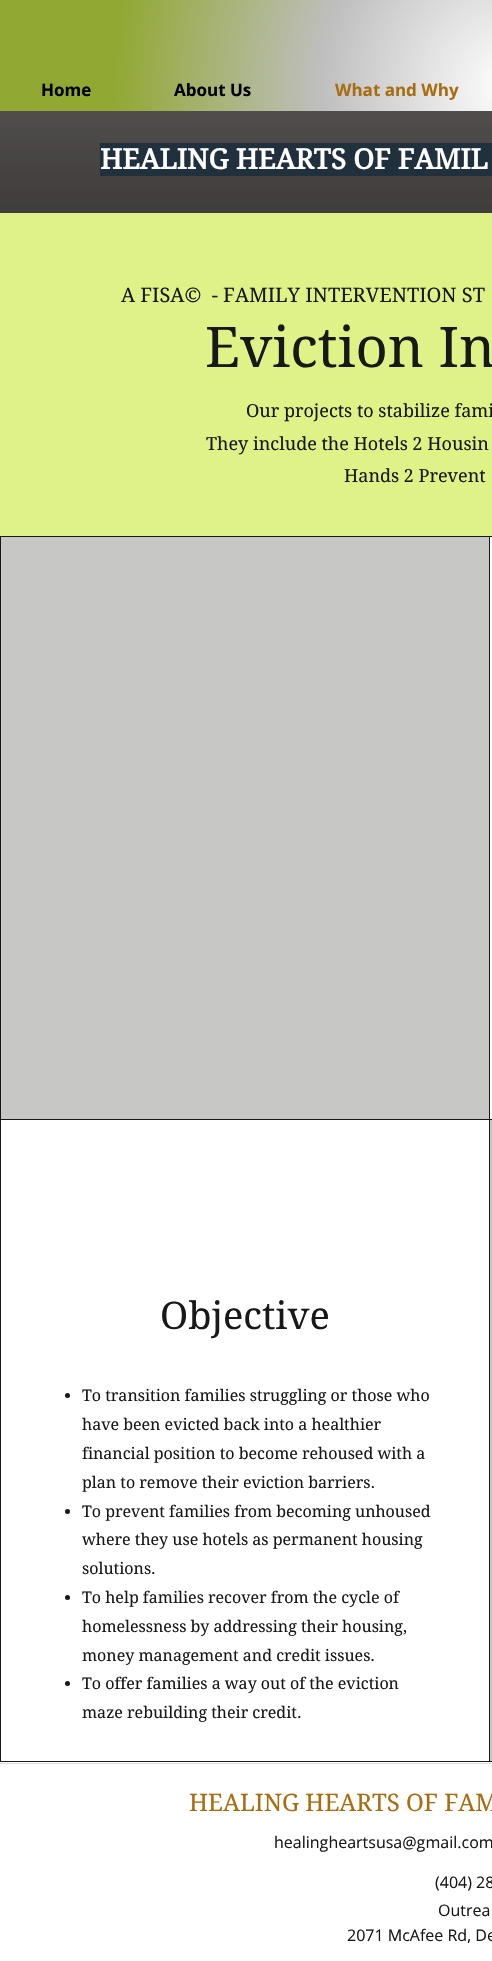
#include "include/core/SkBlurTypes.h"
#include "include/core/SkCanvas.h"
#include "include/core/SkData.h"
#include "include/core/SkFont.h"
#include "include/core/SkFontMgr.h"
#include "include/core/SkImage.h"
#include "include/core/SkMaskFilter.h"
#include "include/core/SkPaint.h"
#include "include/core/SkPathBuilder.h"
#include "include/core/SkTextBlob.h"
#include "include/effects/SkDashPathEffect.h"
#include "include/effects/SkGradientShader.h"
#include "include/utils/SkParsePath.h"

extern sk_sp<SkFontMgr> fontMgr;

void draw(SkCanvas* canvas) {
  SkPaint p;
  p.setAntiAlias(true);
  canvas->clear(SK_ColorWHITE);
  {
    const SkColor colors[] = {SK_ColorWHITE, SkColorSetRGB(191, 191, 191), SkColorSetRGB(145, 168, 50)};
    const float stops[] = {0, 0.36f, 0.76f};
    p.setShader(SkGradientShader::MakeRadial({510, 86}, 524, colors, stops, 3, SkTileMode::kClamp));
    p.setAlpha(255);
  }
  canvas->drawRect(SkRect::MakeLTRB(0, 0, 492, 111), p);
  p.setShader(nullptr);
  p.setColor(SkColorSetRGB(59, 55, 55));
  canvas->drawRect(SkRect::MakeLTRB(0, 111, 492, 213), p);
  canvas->drawImageRect(SkImages::DeferredFromEncodedData(SkData::MakeFromFileName("images/1.png")), SkRect::MakeLTRB(0, 111, 492, 213), SkSamplingOptions());
  p.setColor(SkColorSetRGB(32, 48, 60));
  canvas->drawRect(SkRect::MakeLTRB(100, 143, 492, 176), p);
  p.setColor(SkColorSetRGB(222, 242, 136));
  canvas->drawRect(SkRect::MakeLTRB(0, 213, 492, 536), p);
  p.setColor(SkColorSetRGB(24, 24, 24));
  canvas->drawRect(SkRect::MakeLTRB(0, 536, 492, 1762), p);
  p.setColor(SkColorSetRGB(199, 199, 197));
  canvas->drawRect(SkRect::MakeLTRB(1, 537, 489, 1119), p);
  p.setColor(SK_ColorWHITE);
  canvas->drawRect(SkRect::MakeLTRB(490, 537, 492, 1119), p);
  canvas->drawRect(SkRect::MakeLTRB(1, 1120, 489, 1761), p);
  p.setColor(SkColorSetRGB(24, 24, 24));
  canvas->drawCircle(67.5f, 1395.5f, 2.5f, p);
  canvas->drawCircle(67.5f, 1511.5f, 2.5f, p);
  canvas->drawCircle(67.5f, 1597.5f, 2.5f, p);
  canvas->drawCircle(67.5f, 1683.5f, 2.5f, p);
  p.setColor(SkColorSetRGB(199, 199, 197));
  canvas->drawRect(SkRect::MakeLTRB(490, 1120, 492, 1761), p);
  p.setColor(SkColorSetRGB(220, 220, 220));
  canvas->drawRect(SkRect::MakeLTRB(0, 1763, 492, 1764), p);
  SkFont font1(fontMgr->matchFamilyStyle("Open Sans", SkFontStyle::Bold()), 17);
  font1.setSubpixel(true);
  p.setColor(SK_ColorBLACK);
  canvas->drawString("Home", 41, 96, font1, p);
  canvas->drawString("About Us", 174, 96, font1, p);
  p.setColor(SkColorSetRGB(168, 109, 17));
  canvas->drawString("What and Why", 335, 96, font1, p);
  SkFont font2(fontMgr->matchFamilyStyle("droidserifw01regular", SkFontStyle::Bold()), 28);
  font2.setSubpixel(true);
  p.setColor(SK_ColorWHITE);
  canvas->drawString("HEALING HEARTS OF FAMIL", 100, 169, font2, p);
  SkFont font3(fontMgr->matchFamilyStyle("droidserifw01regular", SkFontStyle::Normal()), 20);
  font3.setSubpixel(true);
  p.setColor(SkColorSetRGB(24, 24, 24));
  canvas->drawString("A FISA©  - FAMILY INTERVENTION ST", 121, 302, font3, p);
  SkFont font4(fontMgr->matchFamilyStyle("droidserifw01regular", SkFontStyle::Normal()), 56);
  font4.setSubpixel(true);
  canvas->drawString("Eviction In", 205, 367, font4, p);
  SkFont font5(fontMgr->matchFamilyStyle("droidserifw01regular", SkFontStyle::Normal()), 18);
  font5.setSubpixel(true);
  canvas->drawString("Our projects to stabilize fami", 246, 417, font5, p);
  canvas->drawString("They include the Hotels 2 Housin", 206, 450, font5, p);
  canvas->drawString("Hands 2 Prevent", 344, 482, font5, p);
  SkFont font6(fontMgr->matchFamilyStyle("droidserifw01regular", SkFontStyle::Normal()), 38);
  font6.setSubpixel(true);
  canvas->drawString("Objective", 160, 1329, font6, p);
  SkFont font7(fontMgr->matchFamilyStyle("droidserifw01regular", SkFontStyle::Normal()), 16);
  font7.setSubpixel(true);
  canvas->drawString("To transition families struggling or those who", 82, 1401, font7, p);
  canvas->drawString("have been evicted back into a healthier", 82, 1430, font7, p);
  canvas->drawString("financial position to become rehoused with a", 82, 1459, font7, p);
  canvas->drawString("plan to remove their eviction barriers.", 82, 1488, font7, p);
  canvas->drawString("To prevent families from becoming unhoused", 82, 1517, font7, p);
  canvas->drawString("where they use hotels as permanent housing", 82, 1545, font7, p);
  canvas->drawString("solutions.", 82, 1574, font7, p);
  canvas->drawString("To help families recover from the cycle of", 82, 1603, font7, p);
  canvas->drawString("homelessness by addressing their housing,", 82, 1632, font7, p);
  canvas->drawString("money management and credit issues.", 82, 1661, font7, p);
  canvas->drawString("To offer families a way out of the eviction", 82, 1689, font7, p);
  canvas->drawString("maze rebuilding their credit.", 82, 1718, font7, p);
  SkFont font8(fontMgr->matchFamilyStyle("droidserifw01regular", SkFontStyle::Normal()), 24);
  font8.setSubpixel(true);
  p.setColor(SkColorSetRGB(168, 109, 17));
  canvas->drawString("HEALING HEARTS OF FAM", 189, 1811, font8, p);
  SkFont font9(fontMgr->matchFamilyStyle("Open Sans", SkFontStyle::Normal()), 16);
  font9.setSubpixel(true);
  p.setColor(SkColorSetRGB(24, 24, 24));
  canvas->drawString("healingheartsusa@gmail.com", 274, 1848, font9, p);
  canvas->drawString("(404) 28", 435, 1888, font9, p);
  canvas->drawString("Outrea", 438, 1916, font9, p);
  canvas->drawString("2071 McAfee Rd, De", 347, 1941, font9, p);
}
